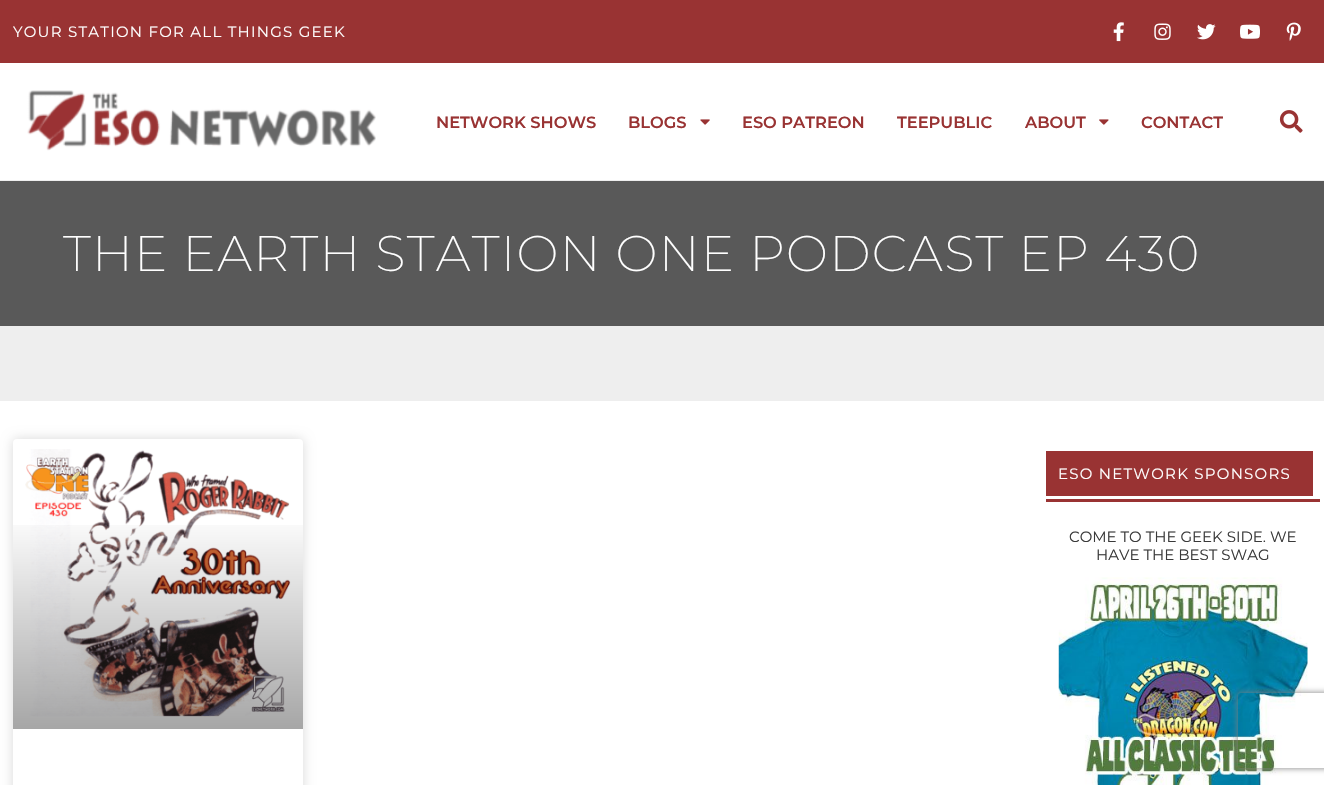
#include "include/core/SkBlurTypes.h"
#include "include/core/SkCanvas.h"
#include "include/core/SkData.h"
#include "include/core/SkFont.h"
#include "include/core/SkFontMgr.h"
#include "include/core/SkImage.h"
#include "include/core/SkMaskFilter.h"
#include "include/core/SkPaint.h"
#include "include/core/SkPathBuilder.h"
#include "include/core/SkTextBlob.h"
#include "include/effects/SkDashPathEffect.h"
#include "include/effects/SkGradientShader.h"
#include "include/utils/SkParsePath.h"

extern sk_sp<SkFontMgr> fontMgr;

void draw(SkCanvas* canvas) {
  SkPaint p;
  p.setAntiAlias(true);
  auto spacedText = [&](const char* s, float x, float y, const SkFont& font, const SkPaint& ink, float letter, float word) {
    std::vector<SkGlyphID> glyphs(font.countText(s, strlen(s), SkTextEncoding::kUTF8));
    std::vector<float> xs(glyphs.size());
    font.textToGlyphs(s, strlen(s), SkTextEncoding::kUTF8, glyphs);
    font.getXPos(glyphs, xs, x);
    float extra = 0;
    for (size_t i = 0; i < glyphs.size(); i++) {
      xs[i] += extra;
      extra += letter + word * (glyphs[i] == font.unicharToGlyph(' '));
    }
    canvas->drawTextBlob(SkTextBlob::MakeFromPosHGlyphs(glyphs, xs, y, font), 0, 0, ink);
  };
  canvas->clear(SK_ColorWHITE);
  p.setColor(SkColorSetRGB(153, 51, 51));
  canvas->drawRect(SkRect::MakeLTRB(0, 0, 1324, 63), p);
  canvas->drawImageRect(SkImages::DeferredFromEncodedData(SkData::MakeFromFileName("images/1.png")), SkRect::MakeLTRB(1113, 22, 1124, 42), SkSamplingOptions());
  canvas->drawImageRect(SkImages::DeferredFromEncodedData(SkData::MakeFromFileName("images/2.png")), SkRect::MakeLTRB(1154, 23, 1171, 40), SkSamplingOptions());
  canvas->drawImageRect(SkImages::DeferredFromEncodedData(SkData::MakeFromFileName("images/3.png")), SkRect::MakeLTRB(1197, 24, 1216, 40), SkSamplingOptions());
  canvas->drawImageRect(SkImages::DeferredFromEncodedData(SkData::MakeFromFileName("images/4.png")), SkRect::MakeLTRB(1240, 24, 1260, 39), SkSamplingOptions());
  canvas->drawImageRect(SkImages::DeferredFromEncodedData(SkData::MakeFromFileName("images/5.png")), SkRect::MakeLTRB(1286, 22, 1301, 41), SkSamplingOptions());
  p.setColor(SkColorSetRGB(238, 238, 238));
  canvas->drawRect(SkRect::MakeLTRB(0, 180, 1324, 181), p);
  canvas->drawImageRect(SkImages::DeferredFromEncodedData(SkData::MakeFromFileName("images/6.png")), SkRect::MakeLTRB(27, 90, 376, 151), SkSamplingOptions());
  canvas->drawImageRect(SkImages::DeferredFromEncodedData(SkData::MakeFromFileName("images/7.png")), SkRect::MakeLTRB(700, 119, 710, 125), SkSamplingOptions());
  canvas->drawImageRect(SkImages::DeferredFromEncodedData(SkData::MakeFromFileName("images/8.png")), SkRect::MakeLTRB(1099, 119, 1109, 125), SkSamplingOptions());
  canvas->drawImageRect(SkImages::DeferredFromEncodedData(SkData::MakeFromFileName("images/9.png")), SkRect::MakeLTRB(1279, 110, 1303, 133), SkSamplingOptions());
  p.setColor(SkColorSetRGB(89, 89, 89));
  canvas->drawRect(SkRect::MakeLTRB(0, 181, 1324, 326), p);
  p.setColor(SkColorSetRGB(238, 238, 238));
  canvas->drawRect(SkRect::MakeLTRB(0, 326, 1324, 401), p);
  p.setColor(SkColorSetARGB(38, 0, 0, 0));
  p.setMaskFilter(SkMaskFilter::MakeBlur(kNormal_SkBlurStyle, 6));
  canvas->drawRoundRect(SkRect::MakeLTRB(13, 439, 303, 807), 4, 4, p);
  p.setMaskFilter(nullptr);
  p.setColor(SK_ColorWHITE);
  canvas->drawRoundRect(SkRect::MakeLTRB(13, 439, 303, 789), 4, 4, p);
  canvas->drawImageRect(SkImages::DeferredFromEncodedData(SkData::MakeFromFileName("images/10.png")), SkRect::MakeLTRB(25, 449, 291, 717), SkSamplingOptions());
  {
    const SkColor colors[] = {SkColorSetARGB(89, 0, 0, 0), SkColorSetARGB(0, 0, 0, 0)};
    const float stops[] = {0, 0.75f};
    const SkPoint ends[] = {{158, 729}, {158, 439}};
    p.setShader(SkGradientShader::MakeLinear(ends, colors, stops, 2, SkTileMode::kClamp));
    p.setAlpha(255);
  }
  canvas->drawRect(SkRect::MakeLTRB(13, 525, 303, 729), p);
  p.setShader(nullptr);
  p.setColor(SkColorSetRGB(153, 51, 51));
  canvas->drawRect(SkRect::MakeLTRB(1046, 451, 1313, 496), p);
  canvas->drawRect(SkRect::MakeLTRB(1046, 499, 1320, 502), p);
  canvas->drawImageRect(SkImages::DeferredFromEncodedData(SkData::MakeFromFileName("images/11.png")), SkRect::MakeLTRB(1058, 577, 1308, 785), SkSamplingOptions());
  canvas->save();
  canvas->clipPath(SkPathBuilder(SkPathFillType::kEvenOdd).moveTo(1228, 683).lineTo(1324, 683).lineTo(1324, 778).lineTo(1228, 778).close().moveTo(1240.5f, 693).lineTo(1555.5f, 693).cubicTo(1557, 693, 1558, 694, 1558, 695.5f).lineTo(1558, 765.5f).cubicTo(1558, 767, 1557, 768, 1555.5f, 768).lineTo(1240.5f, 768).cubicTo(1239, 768, 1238, 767, 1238, 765.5f).lineTo(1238, 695.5f).cubicTo(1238, 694, 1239, 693, 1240.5f, 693).close().detach(), true);
  p.setColor(SkColorSetRGB(128, 128, 128));
  p.setMaskFilter(SkMaskFilter::MakeBlur(kNormal_SkBlurStyle, 3));
  canvas->drawRoundRect(SkRect::MakeLTRB(1238, 693, 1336, 768), 2.5f, 2.5f, p);
  p.setMaskFilter(nullptr);
  canvas->restore();
  SkFont font1(fontMgr->matchFamilyStyle("Montserrat", SkFontStyle::Normal()), 15);
  font1.setSubpixel(true);
  p.setColor(SK_ColorWHITE);
  spacedText("YOUR STATION FOR ALL THINGS GEEK", 13, 37, font1, p, 1.25f, 0);
  SkFont font2(fontMgr->matchFamilyStyle("Montserrat", SkFontStyle(600, SkFontStyle::kNormal_Width, SkFontStyle::kUpright_Slant)), 16.25f);
  font2.setSubpixel(true);
  p.setColor(SkColorSetRGB(153, 51, 51));
  canvas->drawString("NETWORK SHOWS", 436, 128, font2, p);
  canvas->drawString("BLOGS", 628, 128, font2, p);
  canvas->drawString("ESO PATREON", 742, 128, font2, p);
  canvas->drawString("TEEPUBLIC", 897, 128, font2, p);
  canvas->drawString("ABOUT", 1025, 128, font2, p);
  canvas->drawString("CONTACT", 1141, 128, font2, p);
  SkFont font3(fontMgr->matchFamilyStyle("Montserrat", SkFontStyle(200, SkFontStyle::kNormal_Width, SkFontStyle::kUpright_Slant)), 50);
  font3.setSubpixel(true);
  p.setColor(SK_ColorWHITE);
  spacedText("THE EARTH STATION ONE PODCAST EP 430", 63, 271, font3, p, 1.25f, 0);
  spacedText("ESO NETWORK SPONSORS", 1058, 479, font1, p, 1.25f, 0);
  p.setColor(SkColorSetRGB(58, 58, 58));
  canvas->drawString("COME TO THE GEEK SIDE. WE", 1069, 542, font1, p);
  canvas->drawString("HAVE THE BEST SWAG", 1096, 560, font1, p);
}
